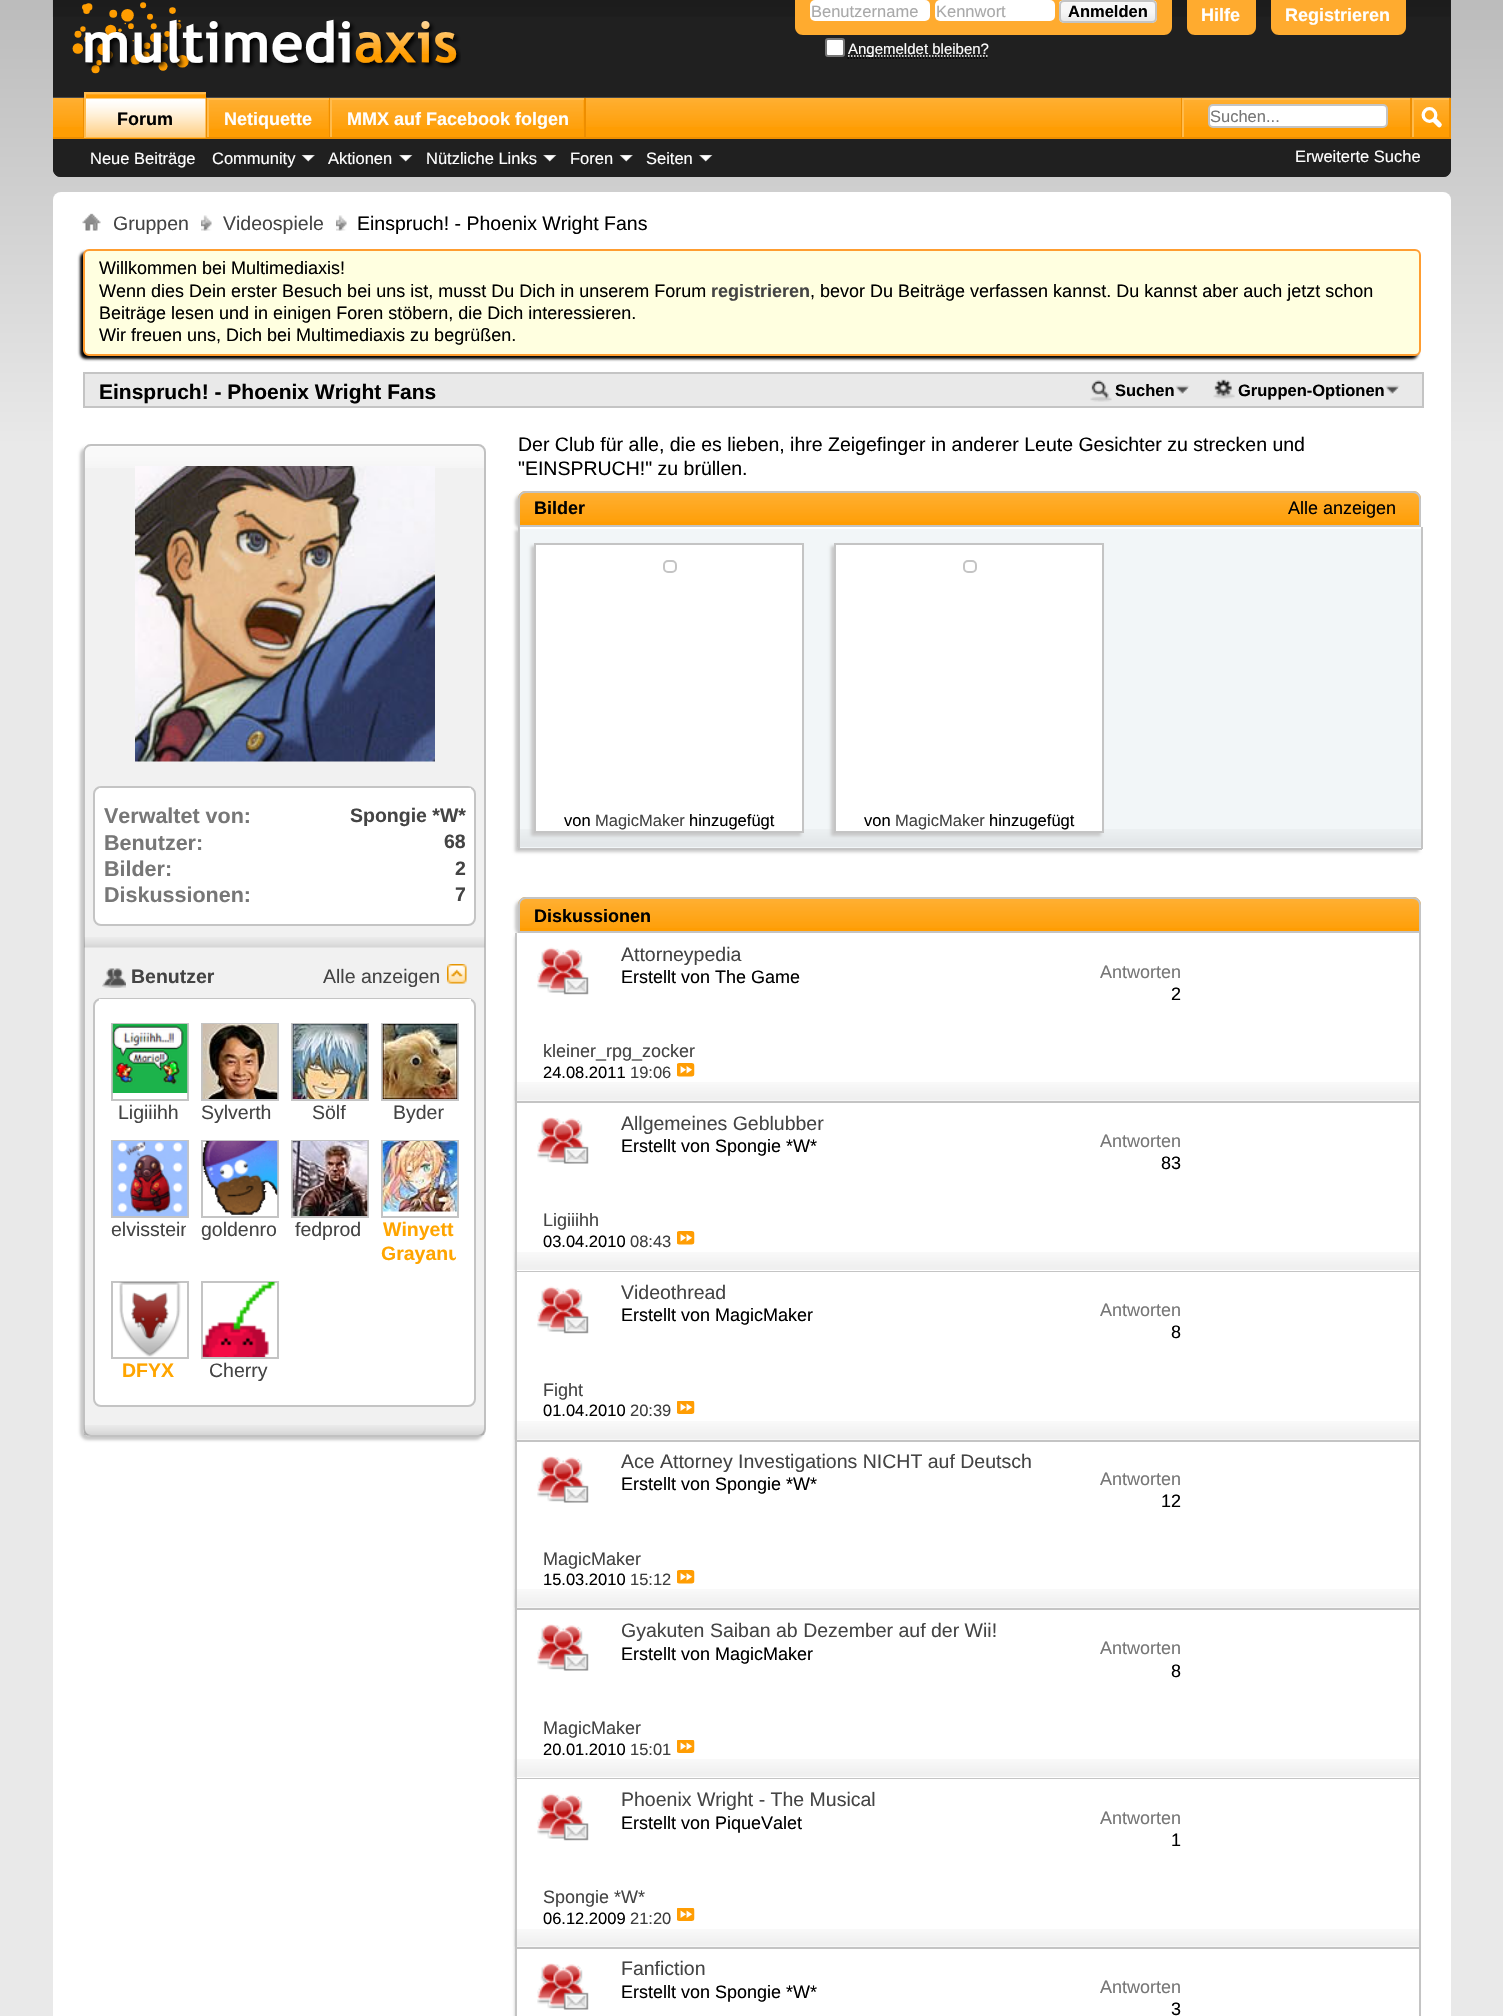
#include "include/core/SkBlurTypes.h"
#include "include/core/SkCanvas.h"
#include "include/core/SkData.h"
#include "include/core/SkFont.h"
#include "include/core/SkFontMgr.h"
#include "include/core/SkImage.h"
#include "include/core/SkMaskFilter.h"
#include "include/core/SkPaint.h"
#include "include/core/SkPathBuilder.h"
#include "include/core/SkTextBlob.h"
#include "include/effects/SkDashPathEffect.h"
#include "include/effects/SkGradientShader.h"
#include "include/utils/SkParsePath.h"

extern sk_sp<SkFontMgr> fontMgr;

void draw(SkCanvas* canvas) {
  SkPaint p;
  p.setAntiAlias(true);
  canvas->clear(SK_ColorWHITE);
  {
    const SkColor colors[] = {SkColorSetRGB(187, 187, 187), SkColorSetRGB(233, 233, 233)};
    const float stops[] = {0, 1};
    const SkPoint ends[] = {{0, -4.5f}, {0, 446}};
    p.setShader(SkGradientShader::MakeLinear(ends, colors, stops, 2, SkTileMode::kClamp));
    p.setAlpha(255);
  }
  canvas->drawRect(SkRect::MakeLTRB(0, 0, 1503, 2016), p);
  p.setShader(nullptr);
  p.setColor(SkColorSetRGB(32, 32, 32));
  canvas->drawPath(SkPathBuilder().moveTo(53, -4).lineTo(1451, -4).lineTo(1451, 169).cubicTo(1451, 173.5f, 1447.5f, 177, 1443, 177).lineTo(61, 177).cubicTo(56.5f, 177, 53, 173.5f, 53, 169).close().detach(), p);
  canvas->drawImageRect(SkImages::DeferredFromEncodedData(SkData::MakeFromFileName("images/1.png")), SkRect::MakeLTRB(52, 0, 1450, 17), SkSamplingOptions());
  canvas->drawImageRect(SkImages::DeferredFromEncodedData(SkData::MakeFromFileName("images/2.png")), SkRect::MakeLTRB(72, 2, 461, 74), SkSamplingOptions());
  p.setColor(SkColorSetRGB(255, 171, 47));
  canvas->drawPath(SkPathBuilder().moveTo(795, -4).lineTo(1172, -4).lineTo(1172, 27).cubicTo(1172, 31.5f, 1168.5f, 35, 1164, 35).lineTo(803, 35).cubicTo(798.5f, 35, 795, 31.5f, 795, 27).close().detach(), p);
  p.setColor(SK_ColorWHITE);
  canvas->drawRoundRect(SkRect::MakeLTRB(810, 0, 930, 21), 5, 5, p);
  canvas->drawRoundRect(SkRect::MakeLTRB(935, 0, 1055, 21), 5, 5, p);
  p.setColor(SkColorSetRGB(233, 233, 233));
  canvas->drawRoundRect(SkRect::MakeLTRB(1059, 0, 1157, 23), 5, 5, p);
  canvas->drawImageRect(SkImages::DeferredFromEncodedData(SkData::MakeFromFileName("images/3.png")), SkRect::MakeLTRB(1059, 1, 1157, 20), SkSamplingOptions());
  p.setStyle(SkPaint::kStroke_Style);
  p.setStrokeWidth(2);
  p.setColor(SkColorSetRGB(196, 196, 196));
  canvas->drawRoundRect(SkRect::MakeLTRB(1060, 1, 1156, 22), 4, 4, p);
  p.setStyle(SkPaint::kFill_Style);
  p.setColor(SK_ColorWHITE);
  canvas->drawRoundRect(SkRect::MakeLTRB(826, 39, 844, 56), 2, 2, p);
  p.setStyle(SkPaint::kStroke_Style);
  p.setColor(SkColorSetRGB(118, 118, 118));
  canvas->drawRoundRect(SkRect::MakeLTRB(826, 39, 844, 56), 2, 2, p);
  p.setStrokeWidth(1.5f);
  p.setColor(SK_ColorBLACK);
  p.setPathEffect(SkDashPathEffect::Make({{1.5f, 1.5f}}, 0));
  canvas->drawPath(SkPathBuilder().moveTo(847.5f, 58).lineTo(988.5f, 58).detach(), p);
  p.setPathEffect(nullptr);
  p.setColor(SK_ColorWHITE);
  p.setPathEffect(SkDashPathEffect::Make({{1.5f, 1.5f}}, 0));
  canvas->drawPath(SkPathBuilder().moveTo(848, 56).lineTo(989, 56).detach(), p);
  p.setPathEffect(nullptr);
  p.setStyle(SkPaint::kFill_Style);
  p.setColor(SkColorSetRGB(255, 171, 47));
  canvas->drawPath(SkPathBuilder().moveTo(1187, -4).lineTo(1256, -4).lineTo(1256, 27).cubicTo(1256, 31.5f, 1252.5f, 35, 1248, 35).lineTo(1195, 35).cubicTo(1190.5f, 35, 1187, 31.5f, 1187, 27).close().detach(), p);
  canvas->drawPath(SkPathBuilder().moveTo(1271, -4).lineTo(1406, -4).lineTo(1406, 27).cubicTo(1406, 31.5f, 1402.5f, 35, 1398, 35).lineTo(1279, 35).cubicTo(1274.5f, 35, 1271, 31.5f, 1271, 27).close().detach(), p);
  p.setColor(SkColorSetRGB(32, 32, 32));
  canvas->drawPath(SkPathBuilder().moveTo(53, 98).lineTo(1451, 98).lineTo(1451, 169).cubicTo(1451, 173.5f, 1447.5f, 177, 1443, 177).lineTo(61, 177).cubicTo(56.5f, 177, 53, 173.5f, 53, 169).close().detach(), p);
  p.setColor(SkColorSetRGB(255, 157, 3));
  canvas->drawRect(SkRect::MakeLTRB(53, 98, 1449, 137), p);
  canvas->drawImageRect(SkImages::DeferredFromEncodedData(SkData::MakeFromFileName("images/4.png")), SkRect::MakeLTRB(52, 97, 1451, 127), SkSamplingOptions());
  p.setColor(SkColorSetRGB(238, 142, 0));
  canvas->drawRect(SkRect::MakeLTRB(206, 98, 207, 137), p);
  canvas->drawRect(SkRect::MakeLTRB(83, 98, 84, 137), p);
  canvas->drawRect(SkRect::MakeLTRB(329, 98, 330, 138), p);
  p.setColor(SkColorSetRGB(255, 187, 77));
  canvas->drawRect(SkRect::MakeLTRB(207, 98, 329, 100), p);
  canvas->drawRect(SkRect::MakeLTRB(207, 98, 209, 138), p);
  p.setColor(SkColorSetRGB(238, 142, 0));
  canvas->drawRect(SkRect::MakeLTRB(584, 98, 586, 138), p);
  p.setColor(SkColorSetRGB(255, 187, 77));
  canvas->drawRect(SkRect::MakeLTRB(330, 98, 584, 100), p);
  canvas->drawRect(SkRect::MakeLTRB(330, 98, 332, 138), p);
  p.setColor(SkColorSetRGB(238, 142, 0));
  canvas->drawRect(SkRect::MakeLTRB(53, 137, 1451, 139), p);
  p.setColor(SkColorSetRGB(255, 157, 3));
  canvas->drawRect(SkRect::MakeLTRB(86, 94, 206, 138), p);
  canvas->drawImageRect(SkImages::DeferredFromEncodedData(SkData::MakeFromFileName("images/5.png")), SkRect::MakeLTRB(86, 94, 206, 138), SkSamplingOptions());
  p.setColor(SkColorSetRGB(255, 187, 77));
  canvas->drawRect(SkRect::MakeLTRB(84, 92, 206, 94), p);
  canvas->drawRect(SkRect::MakeLTRB(84, 92, 86, 138), p);
  p.setColor(SkColorSetRGB(255, 157, 3));
  canvas->drawRect(SkRect::MakeLTRB(209, 100, 329, 127), p);
  canvas->drawImageRect(SkImages::DeferredFromEncodedData(SkData::MakeFromFileName("images/6.png")), SkRect::MakeLTRB(209, 100, 329, 129), SkSamplingOptions());
  canvas->drawRect(SkRect::MakeLTRB(332, 100, 584, 127), p);
  canvas->drawImageRect(SkImages::DeferredFromEncodedData(SkData::MakeFromFileName("images/7.png")), SkRect::MakeLTRB(332, 100, 584, 129), SkSamplingOptions());
  canvas->drawImageRect(SkImages::DeferredFromEncodedData(SkData::MakeFromFileName("images/8.png")), SkRect::MakeLTRB(301, 155, 315, 162), SkSamplingOptions());
  canvas->drawImageRect(SkImages::DeferredFromEncodedData(SkData::MakeFromFileName("images/9.png")), SkRect::MakeLTRB(399, 155, 413, 162), SkSamplingOptions());
  canvas->drawImageRect(SkImages::DeferredFromEncodedData(SkData::MakeFromFileName("images/9.png")), SkRect::MakeLTRB(543, 155, 557, 162), SkSamplingOptions());
  canvas->drawImageRect(SkImages::DeferredFromEncodedData(SkData::MakeFromFileName("images/8.png")), SkRect::MakeLTRB(619, 155, 633, 162), SkSamplingOptions());
  canvas->drawImageRect(SkImages::DeferredFromEncodedData(SkData::MakeFromFileName("images/9.png")), SkRect::MakeLTRB(699, 155, 713, 162), SkSamplingOptions());
  p.setColor(SkColorSetRGB(238, 142, 0));
  canvas->drawRect(SkRect::MakeLTRB(1181, 98, 1182, 137), p);
  p.setColor(SkColorSetRGB(255, 187, 77));
  canvas->drawRect(SkRect::MakeLTRB(1182, 98, 1410, 100), p);
  canvas->drawRect(SkRect::MakeLTRB(1182, 98, 1184, 137), p);
  p.setColor(SK_ColorWHITE);
  canvas->drawRoundRect(SkRect::MakeLTRB(1209, 105, 1387, 127), 4, 4, p);
  p.setStyle(SkPaint::kStroke_Style);
  p.setStrokeWidth(2);
  p.setColor(SkColorSetRGB(196, 196, 196));
  canvas->drawRoundRect(SkRect::MakeLTRB(1209, 105, 1387, 127), 4, 4, p);
  p.setStyle(SkPaint::kFill_Style);
  p.setColor(SkColorSetRGB(238, 142, 0));
  canvas->drawRect(SkRect::MakeLTRB(1449, 98, 1451, 137), p);
  canvas->drawRect(SkRect::MakeLTRB(1410, 98, 1412, 137), p);
  p.setColor(SkColorSetRGB(255, 187, 77));
  canvas->drawRect(SkRect::MakeLTRB(1412, 98, 1449, 100), p);
  canvas->drawRect(SkRect::MakeLTRB(1412, 98, 1414, 137), p);
  canvas->drawImageRect(SkImages::DeferredFromEncodedData(SkData::MakeFromFileName("images/10.png")), SkRect::MakeLTRB(1421, 107, 1442, 128), SkSamplingOptions());
  p.setColor(SK_ColorWHITE);
  canvas->drawRoundRect(SkRect::MakeLTRB(53, 192, 1451, 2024), 8, 8, p);
  canvas->drawImageRect(SkImages::DeferredFromEncodedData(SkData::MakeFromFileName("images/11.png")), SkRect::MakeLTRB(82, 213, 101, 231), SkSamplingOptions());
  canvas->drawImageRect(SkImages::DeferredFromEncodedData(SkData::MakeFromFileName("images/12.png")), SkRect::MakeLTRB(201, 215, 212, 231), SkSamplingOptions());
  canvas->drawImageRect(SkImages::DeferredFromEncodedData(SkData::MakeFromFileName("images/13.png")), SkRect::MakeLTRB(336, 215, 347, 231), SkSamplingOptions());
  p.setColor(SK_ColorBLACK);
  p.setMaskFilter(SkMaskFilter::MakeBlur(kNormal_SkBlurStyle, 1.5f));
  canvas->drawRoundRect(SkRect::MakeLTRB(80, 252, 1418, 359), 6, 6, p);
  p.setMaskFilter(nullptr);
  p.setColor(SkColorSetRGB(255, 255, 224));
  canvas->drawRoundRect(SkRect::MakeLTRB(84, 250, 1420, 355), 5, 5, p);
  p.setStyle(SkPaint::kStroke_Style);
  p.setColor(SkColorSetRGB(255, 157, 48));
  canvas->drawRoundRect(SkRect::MakeLTRB(84, 250, 1420, 355), 5, 5, p);
  p.setStyle(SkPaint::kFill_Style);
  p.setColor(SkColorSetRGB(233, 233, 233));
  canvas->drawRect(SkRect::MakeLTRB(84, 373, 1423, 407), p);
  p.setStyle(SkPaint::kStroke_Style);
  p.setColor(SkColorSetRGB(196, 196, 196));
  canvas->drawRect(SkRect::MakeLTRB(84, 373, 1423, 407), p);
  canvas->drawImageRect(SkImages::DeferredFromEncodedData(SkData::MakeFromFileName("images/14.png")), SkRect::MakeLTRB(1090, 380, 1112, 402), SkSamplingOptions());
  canvas->drawImageRect(SkImages::DeferredFromEncodedData(SkData::MakeFromFileName("images/15.png")), SkRect::MakeLTRB(1175, 385, 1190, 395), SkSamplingOptions());
  canvas->drawImageRect(SkImages::DeferredFromEncodedData(SkData::MakeFromFileName("images/16.png")), SkRect::MakeLTRB(1213, 379, 1235, 399), SkSamplingOptions());
  canvas->drawImageRect(SkImages::DeferredFromEncodedData(SkData::MakeFromFileName("images/17.png")), SkRect::MakeLTRB(1385, 385, 1400, 395), SkSamplingOptions());
  p.setStyle(SkPaint::kFill_Style);
  p.setColor(SkColorSetRGB(200, 200, 200));
  p.setMaskFilter(SkMaskFilter::MakeBlur(kNormal_SkBlurStyle, 1.5f));
  canvas->drawRoundRect(SkRect::MakeLTRB(80, 447, 483, 1440), 8, 8, p);
  p.setMaskFilter(nullptr);
  p.setColor(SkColorSetRGB(241, 241, 241));
  canvas->drawRoundRect(SkRect::MakeLTRB(83, 444, 486, 1437), 8, 8, p);
  canvas->drawImageRect(SkImages::DeferredFromEncodedData(SkData::MakeFromFileName("images/18.png")), SkRect::MakeLTRB(83, 445, 486, 468), SkSamplingOptions());
  p.setStyle(SkPaint::kStroke_Style);
  p.setColor(SkColorSetRGB(193, 193, 193));
  canvas->drawRoundRect(SkRect::MakeLTRB(84, 445, 485, 1436), 7, 7, p);
  canvas->drawImageRect(SkImages::DeferredFromEncodedData(SkData::MakeFromFileName("images/19.png")), SkRect::MakeLTRB(135, 466, 435, 762), SkSamplingOptions());
  p.setStyle(SkPaint::kFill_Style);
  p.setColor(SK_ColorWHITE);
  canvas->drawRoundRect(SkRect::MakeLTRB(94, 787, 475, 925), 7, 7, p);
  p.setStyle(SkPaint::kStroke_Style);
  p.setColor(SkColorSetRGB(196, 196, 196));
  canvas->drawRoundRect(SkRect::MakeLTRB(94, 787, 475, 925), 7, 7, p);
  p.setStyle(SkPaint::kFill_Style);
  p.setColor(SK_ColorWHITE);
  canvas->drawRect(SkRect::MakeLTRB(99, 788, 471, 789), p);
  canvas->drawImageRect(SkImages::DeferredFromEncodedData(SkData::MakeFromFileName("images/20.png")), SkRect::MakeLTRB(84, 937, 485, 948), SkSamplingOptions());
  canvas->drawImageRect(SkImages::DeferredFromEncodedData(SkData::MakeFromFileName("images/21.png")), SkRect::MakeLTRB(102, 968, 126, 988), SkSamplingOptions());
  canvas->drawImageRect(SkImages::DeferredFromEncodedData(SkData::MakeFromFileName("images/22.png")), SkRect::MakeLTRB(447, 964, 467, 984), SkSamplingOptions());
  canvas->drawRoundRect(SkRect::MakeLTRB(94, 999, 475, 1406), 7, 7, p);
  p.setStyle(SkPaint::kStroke_Style);
  p.setColor(SkColorSetRGB(196, 196, 196));
  canvas->drawRoundRect(SkRect::MakeLTRB(94, 999, 475, 1406), 7, 7, p);
  p.setStyle(SkPaint::kFill_Style);
  p.setColor(SK_ColorWHITE);
  canvas->drawRect(SkRect::MakeLTRB(99, 999, 471, 1001), p);
  p.setStyle(SkPaint::kStroke_Style);
  p.setColor(SkColorSetRGB(196, 196, 196));
  canvas->drawRect(SkRect::MakeLTRB(112, 1024, 188, 1100), p);
  canvas->drawImageRect(SkImages::DeferredFromEncodedData(SkData::MakeFromFileName("images/23.png")), SkRect::MakeLTRB(112, 1024, 188, 1093), SkSamplingOptions());
  canvas->drawRect(SkRect::MakeLTRB(202, 1024, 278, 1100), p);
  canvas->drawImageRect(SkImages::DeferredFromEncodedData(SkData::MakeFromFileName("images/24.png")), SkRect::MakeLTRB(202, 1024, 278, 1099), SkSamplingOptions());
  canvas->drawRect(SkRect::MakeLTRB(292, 1024, 368, 1100), p);
  canvas->drawImageRect(SkImages::DeferredFromEncodedData(SkData::MakeFromFileName("images/25.png")), SkRect::MakeLTRB(292, 1024, 368, 1099), SkSamplingOptions());
  canvas->drawRect(SkRect::MakeLTRB(382, 1024, 458, 1100), p);
  canvas->drawImageRect(SkImages::DeferredFromEncodedData(SkData::MakeFromFileName("images/26.png")), SkRect::MakeLTRB(382, 1024, 458, 1099), SkSamplingOptions());
  canvas->drawRect(SkRect::MakeLTRB(112, 1141, 188, 1217), p);
  canvas->drawImageRect(SkImages::DeferredFromEncodedData(SkData::MakeFromFileName("images/27.png")), SkRect::MakeLTRB(112, 1141, 188, 1216), SkSamplingOptions());
  canvas->drawRect(SkRect::MakeLTRB(202, 1141, 278, 1217), p);
  canvas->drawImageRect(SkImages::DeferredFromEncodedData(SkData::MakeFromFileName("images/28.png")), SkRect::MakeLTRB(202, 1141, 278, 1215), SkSamplingOptions());
  canvas->drawRect(SkRect::MakeLTRB(292, 1141, 368, 1217), p);
  canvas->drawImageRect(SkImages::DeferredFromEncodedData(SkData::MakeFromFileName("images/29.png")), SkRect::MakeLTRB(292, 1141, 368, 1216), SkSamplingOptions());
  canvas->drawRect(SkRect::MakeLTRB(382, 1141, 458, 1217), p);
  canvas->drawImageRect(SkImages::DeferredFromEncodedData(SkData::MakeFromFileName("images/30.png")), SkRect::MakeLTRB(382, 1141, 458, 1212), SkSamplingOptions());
  canvas->drawRect(SkRect::MakeLTRB(112, 1282, 188, 1358), p);
  canvas->drawImageRect(SkImages::DeferredFromEncodedData(SkData::MakeFromFileName("images/31.png")), SkRect::MakeLTRB(119, 1282, 181, 1357), SkSamplingOptions());
  canvas->drawRect(SkRect::MakeLTRB(202, 1282, 278, 1358), p);
  canvas->drawImageRect(SkImages::DeferredFromEncodedData(SkData::MakeFromFileName("images/32.png")), SkRect::MakeLTRB(202, 1282, 276, 1357), SkSamplingOptions());
  canvas->drawImageRect(SkImages::DeferredFromEncodedData(SkData::MakeFromFileName("images/33.png")), SkRect::MakeLTRB(84, 1425, 485, 1435), SkSamplingOptions());
  p.setStyle(SkPaint::kFill_Style);
  p.setColor(SkColorSetRGB(200, 200, 200));
  p.setMaskFilter(SkMaskFilter::MakeBlur(kNormal_SkBlurStyle, 1.5f));
  canvas->drawRoundRect(SkRect::MakeLTRB(515, 494, 1418, 530), 8, 8, p);
  p.setMaskFilter(nullptr);
  p.setColor(SkColorSetRGB(255, 157, 3));
  canvas->drawPath(SkPathBuilder().moveTo(526, 491).lineTo(1413, 491).cubicTo(1417.5f, 491, 1421, 494.5f, 1421, 499).lineTo(1421, 527).lineTo(518, 527).lineTo(518, 499).cubicTo(518, 494.5f, 521.5f, 491, 526, 491).close().detach(), p);
  canvas->drawImageRect(SkImages::DeferredFromEncodedData(SkData::MakeFromFileName("images/34.png")), SkRect::MakeLTRB(518, 491, 1421, 522), SkSamplingOptions());
  p.setStyle(SkPaint::kStroke_Style);
  p.setColor(SkColorSetRGB(196, 196, 196));
  canvas->drawPath(SkPathBuilder().moveTo(526, 492).lineTo(1413, 492).cubicTo(1417, 492, 1420, 495, 1420, 499).lineTo(1420, 526).lineTo(519, 526).lineTo(519, 499).cubicTo(519, 495, 522, 492, 526, 492).close().detach(), p);
  p.setStyle(SkPaint::kFill_Style);
  p.setColor(SkColorSetRGB(200, 200, 200));
  p.setMaskFilter(SkMaskFilter::MakeBlur(kNormal_SkBlurStyle, 1.5f));
  canvas->drawRect(SkRect::MakeLTRB(515, 530, 1419, 852), p);
  p.setMaskFilter(nullptr);
  p.setColor(SkColorSetRGB(242, 246, 248));
  canvas->drawRect(SkRect::MakeLTRB(520, 529, 1421, 848), p);
  canvas->drawImageRect(SkImages::DeferredFromEncodedData(SkData::MakeFromFileName("images/35.png")), SkRect::MakeLTRB(517, 829, 1421, 847), SkSamplingOptions());
  p.setColor(SK_ColorWHITE);
  canvas->drawRect(SkRect::MakeLTRB(518, 527, 1422, 529), p);
  p.setColor(SkColorSetRGB(196, 196, 196));
  canvas->drawRect(SkRect::MakeLTRB(1421, 527, 1423, 849), p);
  canvas->drawRect(SkRect::MakeLTRB(518, 848, 1422, 850), p);
  canvas->drawRect(SkRect::MakeLTRB(518, 527, 520, 849), p);
  p.setColor(SkColorSetRGB(200, 200, 200));
  p.setMaskFilter(SkMaskFilter::MakeBlur(kNormal_SkBlurStyle, 1.5f));
  canvas->drawRect(SkRect::MakeLTRB(531, 546, 801, 836), p);
  p.setMaskFilter(nullptr);
  p.setColor(SK_ColorWHITE);
  canvas->drawRect(SkRect::MakeLTRB(535, 544, 803, 832), p);
  p.setStyle(SkPaint::kStroke_Style);
  p.setColor(SkColorSetRGB(196, 196, 196));
  canvas->drawRect(SkRect::MakeLTRB(535, 544, 803, 832), p);
  canvas->drawRoundRect(SkRect::MakeLTRB(664, 561, 676, 572), 4, 4, p);
  p.setStyle(SkPaint::kFill_Style);
  p.setColor(SkColorSetRGB(200, 200, 200));
  p.setMaskFilter(SkMaskFilter::MakeBlur(kNormal_SkBlurStyle, 1.5f));
  canvas->drawRect(SkRect::MakeLTRB(831, 546, 1101, 836), p);
  p.setMaskFilter(nullptr);
  p.setColor(SK_ColorWHITE);
  canvas->drawRect(SkRect::MakeLTRB(835, 544, 1103, 832), p);
  p.setStyle(SkPaint::kStroke_Style);
  p.setColor(SkColorSetRGB(196, 196, 196));
  canvas->drawRect(SkRect::MakeLTRB(835, 544, 1103, 832), p);
  canvas->drawRoundRect(SkRect::MakeLTRB(964, 561, 976, 572), 4, 4, p);
  p.setStyle(SkPaint::kFill_Style);
  p.setColor(SkColorSetRGB(200, 200, 200));
  p.setMaskFilter(SkMaskFilter::MakeBlur(kNormal_SkBlurStyle, 1.5f));
  canvas->drawRoundRect(SkRect::MakeLTRB(515, 900, 1418, 936), 8, 8, p);
  p.setMaskFilter(nullptr);
  p.setColor(SkColorSetRGB(255, 157, 3));
  canvas->drawPath(SkPathBuilder().moveTo(526, 897).lineTo(1413, 897).cubicTo(1417.5f, 897, 1421, 900.5f, 1421, 905).lineTo(1421, 933).lineTo(518, 933).lineTo(518, 905).cubicTo(518, 900.5f, 521.5f, 897, 526, 897).close().detach(), p);
  canvas->drawImageRect(SkImages::DeferredFromEncodedData(SkData::MakeFromFileName("images/36.png")), SkRect::MakeLTRB(518, 898, 1421, 928), SkSamplingOptions());
  p.setStyle(SkPaint::kStroke_Style);
  p.setColor(SkColorSetRGB(196, 196, 196));
  canvas->drawPath(SkPathBuilder().moveTo(526, 898).lineTo(1413, 898).cubicTo(1417, 898, 1420, 901, 1420, 905).lineTo(1420, 932).lineTo(519, 932).lineTo(519, 905).cubicTo(519, 901, 522, 898, 526, 898).close().detach(), p);
  p.setStyle(SkPaint::kFill_Style);
  p.setColor(SkColorSetRGB(200, 200, 200));
  p.setMaskFilter(SkMaskFilter::MakeBlur(kNormal_SkBlurStyle, 1.5f));
  canvas->drawRect(SkRect::MakeLTRB(515, 936, 1418, 1106), p);
  p.setMaskFilter(nullptr);
  p.setColor(SK_ColorWHITE);
  canvas->drawRect(SkRect::MakeLTRB(517, 933, 1419, 1101), p);
  canvas->drawImageRect(SkImages::DeferredFromEncodedData(SkData::MakeFromFileName("images/37.png")), SkRect::MakeLTRB(514, 1082, 1419, 1101), SkSamplingOptions());
  p.setColor(SkColorSetRGB(196, 196, 196));
  canvas->drawRect(SkRect::MakeLTRB(1419, 933, 1421, 1103), p);
  canvas->drawRect(SkRect::MakeLTRB(515, 1101, 1421, 1103), p);
  canvas->drawRect(SkRect::MakeLTRB(515, 933, 517, 1103), p);
  canvas->drawImageRect(SkImages::DeferredFromEncodedData(SkData::MakeFromFileName("images/38.png")), SkRect::MakeLTRB(537, 947, 589, 995), SkSamplingOptions());
  canvas->drawImageRect(SkImages::DeferredFromEncodedData(SkData::MakeFromFileName("images/39.png")), SkRect::MakeLTRB(677, 1063, 695, 1077), SkSamplingOptions());
  p.setColor(SkColorSetRGB(200, 200, 200));
  p.setMaskFilter(SkMaskFilter::MakeBlur(kNormal_SkBlurStyle, 1.5f));
  canvas->drawRect(SkRect::MakeLTRB(515, 1106, 1418, 1275), p);
  p.setMaskFilter(nullptr);
  p.setColor(SK_ColorWHITE);
  canvas->drawRect(SkRect::MakeLTRB(517, 1103, 1419, 1271), p);
  canvas->drawImageRect(SkImages::DeferredFromEncodedData(SkData::MakeFromFileName("images/40.png")), SkRect::MakeLTRB(514, 1252, 1419, 1270), SkSamplingOptions());
  p.setColor(SkColorSetRGB(196, 196, 196));
  canvas->drawRect(SkRect::MakeLTRB(1419, 1103, 1421, 1272), p);
  canvas->drawRect(SkRect::MakeLTRB(515, 1271, 1421, 1272), p);
  canvas->drawRect(SkRect::MakeLTRB(515, 1103, 517, 1272), p);
  canvas->drawImageRect(SkImages::DeferredFromEncodedData(SkData::MakeFromFileName("images/41.png")), SkRect::MakeLTRB(537, 1117, 589, 1164), SkSamplingOptions());
  canvas->drawImageRect(SkImages::DeferredFromEncodedData(SkData::MakeFromFileName("images/39.png")), SkRect::MakeLTRB(677, 1231, 695, 1245), SkSamplingOptions());
  p.setColor(SkColorSetRGB(200, 200, 200));
  p.setMaskFilter(SkMaskFilter::MakeBlur(kNormal_SkBlurStyle, 1.5f));
  canvas->drawRect(SkRect::MakeLTRB(515, 1275, 1418, 1445), p);
  p.setMaskFilter(nullptr);
  p.setColor(SK_ColorWHITE);
  canvas->drawRect(SkRect::MakeLTRB(517, 1272, 1419, 1440), p);
  canvas->drawImageRect(SkImages::DeferredFromEncodedData(SkData::MakeFromFileName("images/37.png")), SkRect::MakeLTRB(514, 1421, 1419, 1440), SkSamplingOptions());
  p.setColor(SkColorSetRGB(196, 196, 196));
  canvas->drawRect(SkRect::MakeLTRB(1419, 1272, 1421, 1442), p);
  canvas->drawRect(SkRect::MakeLTRB(515, 1440, 1421, 1442), p);
  canvas->drawRect(SkRect::MakeLTRB(515, 1272, 517, 1442), p);
  canvas->drawImageRect(SkImages::DeferredFromEncodedData(SkData::MakeFromFileName("images/38.png")), SkRect::MakeLTRB(537, 1286, 589, 1334), SkSamplingOptions());
  canvas->drawImageRect(SkImages::DeferredFromEncodedData(SkData::MakeFromFileName("images/42.png")), SkRect::MakeLTRB(677, 1401, 695, 1414), SkSamplingOptions());
  p.setColor(SkColorSetRGB(200, 200, 200));
  p.setMaskFilter(SkMaskFilter::MakeBlur(kNormal_SkBlurStyle, 1.5f));
  canvas->drawRect(SkRect::MakeLTRB(515, 1445, 1418, 1613), p);
  p.setMaskFilter(nullptr);
  p.setColor(SK_ColorWHITE);
  canvas->drawRect(SkRect::MakeLTRB(517, 1442, 1419, 1608), p);
  canvas->drawImageRect(SkImages::DeferredFromEncodedData(SkData::MakeFromFileName("images/37.png")), SkRect::MakeLTRB(514, 1589, 1419, 1608), SkSamplingOptions());
  p.setColor(SkColorSetRGB(196, 196, 196));
  canvas->drawRect(SkRect::MakeLTRB(1419, 1442, 1421, 1610), p);
  canvas->drawRect(SkRect::MakeLTRB(515, 1608, 1421, 1610), p);
  canvas->drawRect(SkRect::MakeLTRB(515, 1442, 517, 1610), p);
  canvas->drawImageRect(SkImages::DeferredFromEncodedData(SkData::MakeFromFileName("images/41.png")), SkRect::MakeLTRB(537, 1456, 589, 1503), SkSamplingOptions());
  canvas->drawImageRect(SkImages::DeferredFromEncodedData(SkData::MakeFromFileName("images/39.png")), SkRect::MakeLTRB(677, 1570, 695, 1584), SkSamplingOptions());
  p.setColor(SkColorSetRGB(200, 200, 200));
  p.setMaskFilter(SkMaskFilter::MakeBlur(kNormal_SkBlurStyle, 1.5f));
  canvas->drawRect(SkRect::MakeLTRB(515, 1613, 1418, 1782), p);
  p.setMaskFilter(nullptr);
  p.setColor(SK_ColorWHITE);
  canvas->drawRect(SkRect::MakeLTRB(517, 1610, 1419, 1778), p);
  canvas->drawImageRect(SkImages::DeferredFromEncodedData(SkData::MakeFromFileName("images/43.png")), SkRect::MakeLTRB(514, 1759, 1419, 1777), SkSamplingOptions());
  p.setColor(SkColorSetRGB(196, 196, 196));
  canvas->drawRect(SkRect::MakeLTRB(1419, 1610, 1421, 1779), p);
  canvas->drawRect(SkRect::MakeLTRB(515, 1778, 1421, 1779), p);
  canvas->drawRect(SkRect::MakeLTRB(515, 1610, 517, 1779), p);
  canvas->drawImageRect(SkImages::DeferredFromEncodedData(SkData::MakeFromFileName("images/41.png")), SkRect::MakeLTRB(537, 1624, 589, 1671), SkSamplingOptions());
  canvas->drawImageRect(SkImages::DeferredFromEncodedData(SkData::MakeFromFileName("images/42.png")), SkRect::MakeLTRB(677, 1740, 695, 1753), SkSamplingOptions());
  p.setColor(SkColorSetRGB(200, 200, 200));
  p.setMaskFilter(SkMaskFilter::MakeBlur(kNormal_SkBlurStyle, 1.5f));
  canvas->drawRect(SkRect::MakeLTRB(515, 1782, 1418, 1952), p);
  p.setMaskFilter(nullptr);
  p.setColor(SK_ColorWHITE);
  canvas->drawRect(SkRect::MakeLTRB(517, 1779, 1419, 1947), p);
  canvas->drawImageRect(SkImages::DeferredFromEncodedData(SkData::MakeFromFileName("images/44.png")), SkRect::MakeLTRB(514, 1929, 1419, 1947), SkSamplingOptions());
  p.setColor(SkColorSetRGB(196, 196, 196));
  canvas->drawRect(SkRect::MakeLTRB(1419, 1779, 1421, 1949), p);
  canvas->drawRect(SkRect::MakeLTRB(515, 1947, 1421, 1949), p);
  canvas->drawRect(SkRect::MakeLTRB(515, 1779, 517, 1949), p);
  canvas->drawImageRect(SkImages::DeferredFromEncodedData(SkData::MakeFromFileName("images/38.png")), SkRect::MakeLTRB(537, 1793, 589, 1841), SkSamplingOptions());
  canvas->drawImageRect(SkImages::DeferredFromEncodedData(SkData::MakeFromFileName("images/42.png")), SkRect::MakeLTRB(677, 1908, 695, 1921), SkSamplingOptions());
  p.setColor(SkColorSetRGB(200, 200, 200));
  p.setMaskFilter(SkMaskFilter::MakeBlur(kNormal_SkBlurStyle, 1.5f));
  canvas->drawRect(SkRect::MakeLTRB(515, 1952, 1418, 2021), p);
  p.setMaskFilter(nullptr);
  p.setColor(SK_ColorWHITE);
  canvas->drawRect(SkRect::MakeLTRB(517, 1949, 1419, 2016), p);
  p.setColor(SkColorSetRGB(196, 196, 196));
  canvas->drawRect(SkRect::MakeLTRB(1419, 1949, 1421, 2016), p);
  canvas->drawRect(SkRect::MakeLTRB(515, 1949, 517, 2016), p);
  canvas->drawImageRect(SkImages::DeferredFromEncodedData(SkData::MakeFromFileName("images/41.png")), SkRect::MakeLTRB(537, 1963, 589, 2010), SkSamplingOptions());
  SkFont font1(fontMgr->matchFamilyStyle("Liberation Sans", SkFontStyle::Normal()), 16.5f);
  font1.setSubpixel(true);
  p.setColor(SkColorSetRGB(169, 169, 169));
  canvas->drawString("Benutzername", 811, 17, font1, p);
  canvas->drawString("Kennwort", 936, 17, font1, p);
  SkFont font2(fontMgr->matchFamilyStyle("Liberation Sans", SkFontStyle::Bold()), 16.5f);
  font2.setSubpixel(true);
  p.setColor(SK_ColorBLACK);
  canvas->drawString("Anmelden", 1068, 17, font2, p);
  SkFont font3(fontMgr->matchFamilyStyle("Liberation Sans", SkFontStyle::Normal()), 15);
  font3.setSubpixel(true);
  p.setColor(SK_ColorWHITE);
  canvas->drawString("Angemeldet bleiben?", 848, 54, font3, p);
  SkFont font4(fontMgr->matchFamilyStyle("Liberation Sans", SkFontStyle::Bold()), 18);
  font4.setSubpixel(true);
  canvas->drawString("Hilfe", 1201, 21, font4, p);
  canvas->drawString("Registrieren", 1285, 21, font4, p);
  p.setColor(SK_ColorBLACK);
  canvas->drawString("Forum", 117, 125, font4, p);
  p.setColor(SK_ColorWHITE);
  canvas->drawString("Netiquette", 224, 125, font4, p);
  canvas->drawString("MMX auf Facebook folgen", 347, 125, font4, p);
  canvas->drawString("Neue Beiträge", 90, 164, font1, p);
  canvas->drawString("Community", 212, 164, font1, p);
  canvas->drawString("Aktionen", 328, 164, font1, p);
  canvas->drawString("Nützliche Links", 426, 164, font1, p);
  canvas->drawString("Foren", 570, 164, font1, p);
  canvas->drawString("Seiten", 646, 164, font1, p);
  p.setColor(SkColorSetRGB(119, 119, 119));
  canvas->drawString("Suchen...", 1210, 122, font1, p);
  p.setColor(SK_ColorWHITE);
  canvas->drawString("Erweiterte Suche", 1295, 162, font1, p);
  SkFont font5(fontMgr->matchFamilyStyle("Liberation Sans", SkFontStyle::Normal()), 19.5f);
  font5.setSubpixel(true);
  p.setColor(SkColorSetRGB(68, 68, 68));
  canvas->drawString("Gruppen", 113, 230, font5, p);
  canvas->drawString("Videospiele", 223, 230, font5, p);
  p.setColor(SK_ColorBLACK);
  canvas->drawString("Einspruch! - Phoenix Wright Fans", 357, 230, font5, p);
  SkFont font6(fontMgr->matchFamilyStyle("Liberation Sans", SkFontStyle::Normal()), 18);
  font6.setSubpixel(true);
  canvas->drawString("Willkommen bei Multimediaxis!", 99, 274, font6, p);
  canvas->drawString("Wenn dies Dein erster Besuch bei uns ist, musst Du Dich in unserem Forum", 99, 297, font6, p);
  p.setColor(SkColorSetRGB(68, 68, 68));
  canvas->drawString("registrieren", 711, 297, font4, p);
  p.setColor(SK_ColorBLACK);
  canvas->drawString(", bevor Du Beiträge verfassen kannst. Du kannst aber auch jetzt schon", 810, 297, font6, p);
  canvas->drawString("Beiträge lesen und in einigen Foren stöbern, die Dich interessieren.", 99, 319, font6, p);
  canvas->drawString("Wir freuen uns, Dich bei Multimediaxis zu begrüßen.", 99, 341, font6, p);
  SkFont font7(fontMgr->matchFamilyStyle("Liberation Sans", SkFontStyle::Bold()), 21);
  font7.setSubpixel(true);
  canvas->drawString("Einspruch! - Phoenix Wright Fans", 99, 399, font7, p);
  canvas->drawString("Suchen", 1115, 396, font2, p);
  canvas->drawString("Gruppen-Optionen", 1238, 396, font2, p);
  SkFont font8(fontMgr->matchFamilyStyle("Liberation Sans", SkFontStyle::Bold()), 21.5f);
  font8.setSubpixel(true);
  p.setColor(SkColorSetRGB(119, 119, 119));
  canvas->drawString("Verwaltet von:", 104, 823, font8, p);
  SkFont font9(fontMgr->matchFamilyStyle("Liberation Sans", SkFontStyle::Bold()), 19.5f);
  font9.setSubpixel(true);
  p.setColor(SkColorSetRGB(68, 68, 68));
  canvas->drawString("Spongie *W*", 350, 822, font9, p);
  p.setColor(SkColorSetRGB(119, 119, 119));
  canvas->drawString("Benutzer:", 104, 850, font8, p);
  p.setColor(SkColorSetRGB(68, 68, 68));
  canvas->drawString("68", 444, 848, font9, p);
  p.setColor(SkColorSetRGB(119, 119, 119));
  canvas->drawString("Bilder:", 104, 876, font8, p);
  p.setColor(SkColorSetRGB(68, 68, 68));
  canvas->drawString("2", 455, 875, font9, p);
  p.setColor(SkColorSetRGB(119, 119, 119));
  canvas->drawString("Diskussionen:", 104, 902, font8, p);
  p.setColor(SkColorSetRGB(68, 68, 68));
  canvas->drawString("7", 455, 901, font9, p);
  canvas->drawString("Benutzer", 131, 983, font9, p);
  canvas->drawString("Alle anzeigen", 323, 983, font5, p);
  canvas->drawString("Ligiiihh", 118, 1119, font5, p);
  canvas->drawString("Sylverth", 201, 1119, font5, p);
  canvas->drawString("Sölf", 312, 1119, font5, p);
  canvas->drawString("Byder", 393, 1119, font5, p);
  canvas->save();
  canvas->clipRect(SkRect::MakeLTRB(111, 1218, 186, 1242));
  canvas->drawString("elvisstein", 111, 1236, font5, p);
  canvas->restore();
  canvas->drawString("goldenro", 201, 1236, font5, p);
  canvas->drawString("fedprod", 295, 1236, font5, p);
  p.setColor(SkColorSetRGB(255, 165, 0));
  canvas->drawString("Winyett", 383, 1236, font9, p);
  canvas->save();
  canvas->clipRect(SkRect::MakeLTRB(381, 1218, 456, 1266));
  canvas->drawString("Grayanu", 381, 1260, font9, p);
  canvas->restore();
  canvas->drawString("DFYX", 122, 1377, font9, p);
  p.setColor(SkColorSetRGB(68, 68, 68));
  canvas->drawString("Cherry", 209, 1377, font5, p);
  p.setColor(SK_ColorBLACK);
  canvas->drawString("Der Club für alle, die es lieben, ihre Zeigefinger in anderer Leute Gesichter zu strecken und", 518, 451, font5, p);
  canvas->drawString("\"EINSPRUCH!\" zu brüllen.", 518, 475, font5, p);
  canvas->drawString("Bilder", 534, 514, font4, p);
  canvas->drawString("Alle anzeigen", 1288, 514, font6, p);
  canvas->drawString("von", 564, 826, font1, p);
  p.setColor(SkColorSetRGB(68, 68, 68));
  canvas->drawString("MagicMaker", 595, 826, font1, p);
  p.setColor(SK_ColorBLACK);
  canvas->drawString("hinzugefügt", 689, 826, font1, p);
  canvas->drawString("von", 864, 826, font1, p);
  p.setColor(SkColorSetRGB(68, 68, 68));
  canvas->drawString("MagicMaker", 895, 826, font1, p);
  p.setColor(SK_ColorBLACK);
  canvas->drawString("hinzugefügt", 989, 826, font1, p);
  canvas->drawString("Diskussionen", 534, 922, font4, p);
  p.setColor(SkColorSetRGB(68, 68, 68));
  canvas->drawString("Attorneypedia", 621, 961, font5, p);
  p.setColor(SK_ColorBLACK);
  canvas->drawString("Erstellt von The Game", 621, 983, font6, p);
  p.setColor(SkColorSetRGB(119, 119, 119));
  canvas->drawString("Antworten", 1100, 978, font6, p);
  p.setColor(SK_ColorBLACK);
  canvas->drawString("2", 1171, 1000, font6, p);
  p.setColor(SkColorSetRGB(68, 68, 68));
  canvas->drawString("kleiner_rpg_zocker", 543, 1057, font6, p);
  p.setColor(SK_ColorBLACK);
  canvas->drawString("24.08.2011", 543, 1078, font1, p);
  p.setColor(SkColorSetRGB(62, 62, 62));
  canvas->drawString("19:06", 630, 1078, font1, p);
  p.setColor(SkColorSetRGB(68, 68, 68));
  canvas->drawString("Allgemeines Geblubber", 621, 1130, font5, p);
  p.setColor(SK_ColorBLACK);
  canvas->drawString("Erstellt von Spongie *W*", 621, 1152, font6, p);
  p.setColor(SkColorSetRGB(119, 119, 119));
  canvas->drawString("Antworten", 1100, 1147, font6, p);
  p.setColor(SK_ColorBLACK);
  canvas->drawString("83", 1161, 1169, font6, p);
  p.setColor(SkColorSetRGB(68, 68, 68));
  canvas->drawString("Ligiiihh", 543, 1226, font6, p);
  p.setColor(SK_ColorBLACK);
  canvas->drawString("03.04.2010", 543, 1247, font1, p);
  p.setColor(SkColorSetRGB(62, 62, 62));
  canvas->drawString("08:43", 630, 1247, font1, p);
  p.setColor(SkColorSetRGB(68, 68, 68));
  canvas->drawString("Videothread", 621, 1299, font5, p);
  p.setColor(SK_ColorBLACK);
  canvas->drawString("Erstellt von MagicMaker", 621, 1321, font6, p);
  p.setColor(SkColorSetRGB(119, 119, 119));
  canvas->drawString("Antworten", 1100, 1316, font6, p);
  p.setColor(SK_ColorBLACK);
  canvas->drawString("8", 1171, 1338, font6, p);
  p.setColor(SkColorSetRGB(68, 68, 68));
  canvas->drawString("Fight", 543, 1396, font6, p);
  p.setColor(SK_ColorBLACK);
  canvas->drawString("01.04.2010", 543, 1416, font1, p);
  p.setColor(SkColorSetRGB(62, 62, 62));
  canvas->drawString("20:39", 630, 1416, font1, p);
  p.setColor(SkColorSetRGB(68, 68, 68));
  canvas->drawString("Ace Attorney Investigations NICHT auf Deutsch", 621, 1468, font5, p);
  p.setColor(SK_ColorBLACK);
  canvas->drawString("Erstellt von Spongie *W*", 621, 1490, font6, p);
  p.setColor(SkColorSetRGB(119, 119, 119));
  canvas->drawString("Antworten", 1100, 1485, font6, p);
  p.setColor(SK_ColorBLACK);
  canvas->drawString("12", 1161, 1507, font6, p);
  p.setColor(SkColorSetRGB(68, 68, 68));
  canvas->drawString("MagicMaker", 543, 1565, font6, p);
  p.setColor(SK_ColorBLACK);
  canvas->drawString("15.03.2010", 543, 1585, font1, p);
  p.setColor(SkColorSetRGB(62, 62, 62));
  canvas->drawString("15:12", 630, 1585, font1, p);
  p.setColor(SkColorSetRGB(68, 68, 68));
  canvas->drawString("Gyakuten Saiban ab Dezember auf der Wii!", 621, 1637, font5, p);
  p.setColor(SK_ColorBLACK);
  canvas->drawString("Erstellt von MagicMaker", 621, 1660, font6, p);
  p.setColor(SkColorSetRGB(119, 119, 119));
  canvas->drawString("Antworten", 1100, 1654, font6, p);
  p.setColor(SK_ColorBLACK);
  canvas->drawString("8", 1171, 1677, font6, p);
  p.setColor(SkColorSetRGB(68, 68, 68));
  canvas->drawString("MagicMaker", 543, 1734, font6, p);
  p.setColor(SK_ColorBLACK);
  canvas->drawString("20.01.2010", 543, 1755, font1, p);
  p.setColor(SkColorSetRGB(62, 62, 62));
  canvas->drawString("15:01", 630, 1755, font1, p);
  p.setColor(SkColorSetRGB(68, 68, 68));
  canvas->drawString("Phoenix Wright - The Musical", 621, 1806, font5, p);
  p.setColor(SK_ColorBLACK);
  canvas->drawString("Erstellt von PiqueValet", 621, 1829, font6, p);
  p.setColor(SkColorSetRGB(119, 119, 119));
  canvas->drawString("Antworten", 1100, 1824, font6, p);
  p.setColor(SK_ColorBLACK);
  canvas->drawString("1", 1171, 1846, font6, p);
  p.setColor(SkColorSetRGB(68, 68, 68));
  canvas->drawString("Spongie *W*", 543, 1903, font6, p);
  p.setColor(SK_ColorBLACK);
  canvas->drawString("06.12.2009", 543, 1924, font1, p);
  p.setColor(SkColorSetRGB(62, 62, 62));
  canvas->drawString("21:20", 630, 1924, font1, p);
  p.setColor(SkColorSetRGB(68, 68, 68));
  canvas->drawString("Fanfiction", 621, 1975, font5, p);
  p.setColor(SK_ColorBLACK);
  canvas->drawString("Erstellt von Spongie *W*", 621, 1998, font6, p);
  p.setColor(SkColorSetRGB(119, 119, 119));
  canvas->drawString("Antworten", 1100, 1993, font6, p);
  p.setColor(SK_ColorBLACK);
  canvas->drawString("3", 1171, 2015, font6, p);
}
